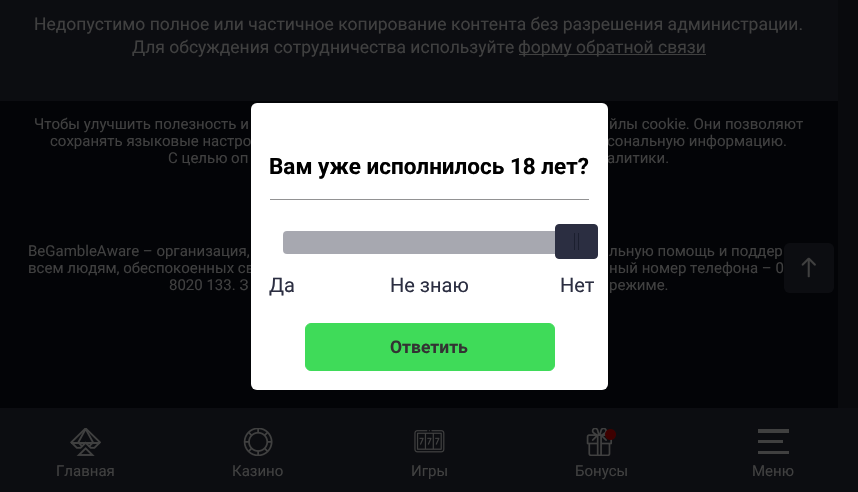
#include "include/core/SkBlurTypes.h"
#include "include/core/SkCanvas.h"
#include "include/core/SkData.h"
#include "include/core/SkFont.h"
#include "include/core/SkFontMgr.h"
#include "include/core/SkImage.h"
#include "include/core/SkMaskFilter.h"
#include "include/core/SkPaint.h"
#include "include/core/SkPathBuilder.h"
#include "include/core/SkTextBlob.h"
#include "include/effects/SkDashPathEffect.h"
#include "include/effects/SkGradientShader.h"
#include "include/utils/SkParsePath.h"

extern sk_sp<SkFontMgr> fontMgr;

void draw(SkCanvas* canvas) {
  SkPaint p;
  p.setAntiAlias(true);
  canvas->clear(SkColorSetRGB(9, 10, 13));
  p.setColor(SkColorSetRGB(12, 13, 17));
  canvas->drawRect(SkRect::MakeLTRB(0, 0, 838, 101), p);
  p.setColor(SkColorSetRGB(64, 64, 64));
  canvas->drawRect(SkRect::MakeLTRB(519, 54, 706, 55), p);
  p.setColor(SkColorSetRGB(3, 4, 7));
  canvas->drawRect(SkRect::MakeLTRB(0, 101, 838, 408), p);
  p.setColor(SkColorSetRGB(12, 13, 17));
  canvas->drawRoundRect(SkRect::MakeLTRB(784, 243, 834, 293), 6, 6, p);
  canvas->drawImageRect(SkImages::DeferredFromEncodedData(SkData::MakeFromFileName("images/1.png")), SkRect::MakeLTRB(801, 257, 816, 278), SkSamplingOptions());
  canvas->drawRect(SkRect::MakeLTRB(0, 408, 858, 492), p);
  canvas->drawImageRect(SkImages::DeferredFromEncodedData(SkData::MakeFromFileName("images/2.png")), SkRect::MakeLTRB(70, 428, 101, 456), SkSamplingOptions());
  canvas->drawImageRect(SkImages::DeferredFromEncodedData(SkData::MakeFromFileName("images/3.png")), SkRect::MakeLTRB(243, 428, 273, 456), SkSamplingOptions());
  canvas->drawImageRect(SkImages::DeferredFromEncodedData(SkData::MakeFromFileName("images/4.png")), SkRect::MakeLTRB(414, 430, 445, 453), SkSamplingOptions());
  canvas->drawImageRect(SkImages::DeferredFromEncodedData(SkData::MakeFromFileName("images/5.png")), SkRect::MakeLTRB(586, 428, 616, 456), SkSamplingOptions());
  p.setColor(SkColorSetRGB(64, 64, 64));
  canvas->drawRect(SkRect::MakeLTRB(758, 429, 789, 433), p);
  canvas->drawRect(SkRect::MakeLTRB(758, 440, 783, 443), p);
  canvas->drawRect(SkRect::MakeLTRB(758, 451, 789, 454), p);
  SkFont font1(fontMgr->matchFamilyStyle("Roboto", SkFontStyle::Normal()), 17.5f);
  font1.setSubpixel(true);
  canvas->drawString("Недопустимо полное или частичное копирование контента без разрешения администрации.", 34, 30, font1, p);
  canvas->drawString("Для обсуждения сотрудничества используйте", 132, 53, font1, p);
  canvas->drawString("форму обратной связи", 518, 53, font1, p);
  SkFont font2(fontMgr->matchFamilyStyle("Roboto", SkFontStyle::Normal()), 15);
  font2.setSubpixel(true);
  canvas->drawString("Чтобы улучшить полезность и", 34, 129, font2, p);
  canvas->drawString("йлы cookie. Они позволяют", 609, 129, font2, p);
  canvas->drawString("сохранять языковые настро", 50, 146, font2, p);
  canvas->drawString("сональную информацию.", 607, 146, font2, p);
  canvas->drawString("С целью оп", 168, 163, font2, p);
  canvas->drawString("алитики.", 607, 163, font2, p);
  canvas->drawString("BeGambleAware – организация,", 28, 256, font2, p);
  canvas->drawString("льную помощь и поддер", 609, 256, font2, p);
  canvas->drawString("всем людям, обеспокоенных св", 28, 273, font2, p);
  canvas->drawString("ный номер телефона – 0", 609, 273, font2, p);
  canvas->drawString("8020 133. З", 169, 290, font2, p);
  canvas->drawString("режиме.", 609, 290, font2, p);
  p.setColor(SK_ColorWHITE);
  canvas->drawRoundRect(SkRect::MakeLTRB(251, 103, 608, 390), 6, 6, p);
  p.setColor(SkColorSetRGB(146, 146, 147));
  canvas->drawRect(SkRect::MakeLTRB(270, 199, 589, 200), p);
  SkFont font3(fontMgr->matchFamilyStyle("Roboto", SkFontStyle::Bold()), 22.5f);
  font3.setSubpixel(true);
  p.setColor(SK_ColorBLACK);
  canvas->drawString("Вам уже исполнилось 18 лет?", 269, 174, font3, p);
  p.setColor(SkColorSetRGB(250, 250, 250));
  canvas->drawRoundRect(SkRect::MakeLTRB(283, 231, 576, 254), 5, 5, p);
  p.setColor(SkColorSetARGB(102, 43, 46, 65));
  canvas->drawRoundRect(SkRect::MakeLTRB(283, 231, 576, 254), 4, 4, p);
  p.setColor(SkColorSetRGB(43, 46, 65));
  canvas->drawRoundRect(SkRect::MakeLTRB(555.5f, 224.5f, 597.5f, 258.5f), 3.5f, 3.5f, p);
  p.setStyle(SkPaint::kStroke_Style);
  p.setStrokeWidth(1);
  canvas->drawRoundRect(SkRect::MakeLTRB(555.5f, 224.5f, 597.5f, 258.5f), 3.5f, 3.5f, p);
  p.setStyle(SkPaint::kFill_Style);
  p.setColor(SkColorSetRGB(27, 31, 47));
  canvas->drawRect(SkRect::MakeLTRB(574, 233, 575, 250), p);
  canvas->drawRect(SkRect::MakeLTRB(578, 233, 579, 250), p);
  SkFont font4(fontMgr->matchFamilyStyle("Roboto", SkFontStyle::Normal()), 20);
  font4.setSubpixel(true);
  p.setColor(SkColorSetRGB(43, 46, 65));
  canvas->drawString("Да", 269, 292, font4, p);
  canvas->drawString("Не знаю", 390, 292, font4, p);
  canvas->drawString("Нет", 560, 292, font4, p);
  p.setColor(SkColorSetRGB(63, 219, 89));
  canvas->drawRoundRect(SkRect::MakeLTRB(305.5f, 323.5f, 554.5f, 370.5f), 5.5f, 5.5f, p);
  p.setStyle(SkPaint::kStroke_Style);
  canvas->drawRoundRect(SkRect::MakeLTRB(305.5f, 323.5f, 554.5f, 370.5f), 5.5f, 5.5f, p);
  SkFont font5(fontMgr->matchFamilyStyle("Roboto", SkFontStyle::Bold()), 17.5f);
  font5.setSubpixel(true);
  p.setStyle(SkPaint::kFill_Style);
  p.setColor(SkColorSetRGB(51, 51, 51));
  canvas->drawString("Ответить", 390, 353, font5, p);
  p.setColor(SkColorSetRGB(64, 64, 64));
  canvas->drawString("Главная", 56, 476, font2, p);
  canvas->drawString("Казино", 232, 476, font2, p);
  canvas->drawString("Игры", 411, 476, font2, p);
  canvas->drawString("Бонусы", 575, 476, font2, p);
  canvas->drawString("Меню", 752, 476, font2, p);
}
